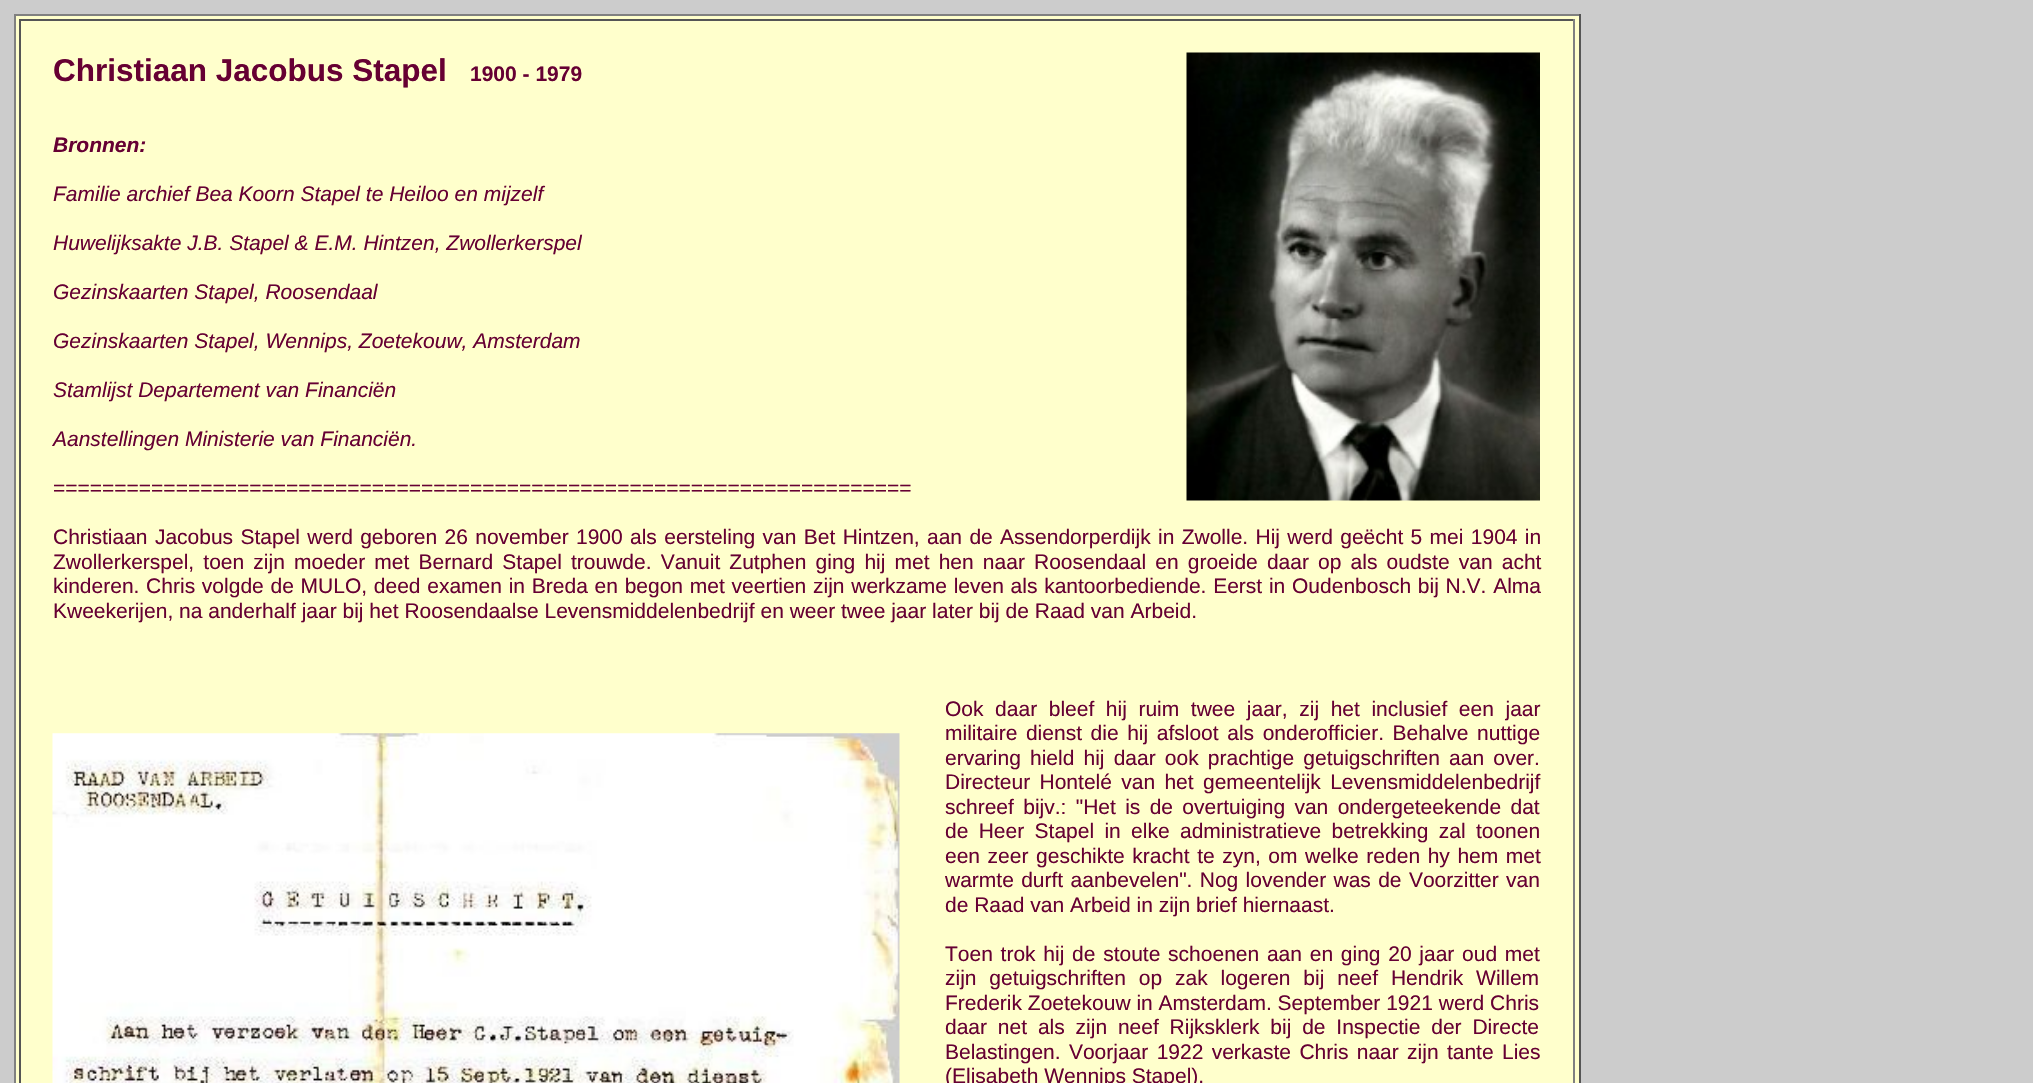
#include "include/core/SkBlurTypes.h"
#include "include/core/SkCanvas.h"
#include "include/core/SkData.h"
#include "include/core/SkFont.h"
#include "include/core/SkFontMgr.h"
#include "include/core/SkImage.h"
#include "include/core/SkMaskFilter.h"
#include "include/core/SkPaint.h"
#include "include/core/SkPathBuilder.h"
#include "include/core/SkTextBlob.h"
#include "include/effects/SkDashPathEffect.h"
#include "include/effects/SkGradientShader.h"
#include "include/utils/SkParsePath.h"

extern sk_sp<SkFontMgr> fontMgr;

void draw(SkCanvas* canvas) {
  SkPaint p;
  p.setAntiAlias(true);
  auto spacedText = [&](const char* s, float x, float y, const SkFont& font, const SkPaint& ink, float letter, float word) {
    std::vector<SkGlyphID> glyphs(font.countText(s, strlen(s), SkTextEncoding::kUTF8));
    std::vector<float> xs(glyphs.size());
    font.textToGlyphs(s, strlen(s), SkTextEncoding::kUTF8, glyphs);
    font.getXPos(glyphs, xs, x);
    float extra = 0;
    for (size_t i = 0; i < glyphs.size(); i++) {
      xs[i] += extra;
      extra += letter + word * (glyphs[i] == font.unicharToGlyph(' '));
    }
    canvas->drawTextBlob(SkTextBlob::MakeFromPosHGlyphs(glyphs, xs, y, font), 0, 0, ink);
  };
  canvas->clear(SkColorSetRGB(204, 204, 204));
  p.setColor(SkColorSetRGB(255, 255, 204));
  canvas->drawRect(SkRect::MakeLTRB(16, 16, 1579, 1083), p);
  p.setColor(SkColorSetRGB(128, 128, 128));
  canvas->drawRect(SkRect::MakeLTRB(14, 14, 1580, 16), p);
  p.setColor(SkColorSetRGB(85, 85, 85));
  canvas->drawRect(SkRect::MakeLTRB(1579, 14, 1581, 1083), p);
  p.setColor(SkColorSetRGB(128, 128, 128));
  canvas->drawRect(SkRect::MakeLTRB(14, 14, 16, 1083), p);
  p.setColor(SkColorSetRGB(85, 85, 85));
  canvas->drawRect(SkRect::MakeLTRB(19, 19, 1575, 21), p);
  p.setColor(SkColorSetRGB(128, 128, 128));
  canvas->drawRect(SkRect::MakeLTRB(1573, 19, 1575, 1083), p);
  p.setColor(SkColorSetRGB(85, 85, 85));
  canvas->drawRect(SkRect::MakeLTRB(19, 19, 21, 1083), p);
  canvas->drawImageRect(SkImages::DeferredFromEncodedData(SkData::MakeFromFileName("images/1.png")), SkRect::MakeLTRB(1186, 52, 1540, 501), SkSamplingOptions());
  canvas->drawImageRect(SkImages::DeferredFromEncodedData(SkData::MakeFromFileName("images/2.png")), SkRect::MakeLTRB(52, 733, 900, 1083), SkSamplingOptions());
  SkFont font1(fontMgr->matchFamilyStyle("Liberation Sans", SkFontStyle::Bold()), 31.5f);
  font1.setSubpixel(true);
  p.setColor(SkColorSetRGB(102, 0, 51));
  canvas->drawString("Christiaan Jacobus Stapel", 53, 81, font1, p);
  SkFont font2(fontMgr->matchFamilyStyle("Liberation Sans", SkFontStyle::Bold()), 21);
  font2.setSubpixel(true);
  canvas->drawString("1900 - 1979", 470, 81, font2, p);
  SkFont font3(fontMgr->matchFamilyStyle("Liberation Sans", SkFontStyle::BoldItalic()), 21);
  font3.setSubpixel(true);
  canvas->drawString("Bronnen:", 53, 152, font3, p);
  SkFont font4(fontMgr->matchFamilyStyle("Liberation Sans", SkFontStyle::Italic()), 21);
  font4.setSubpixel(true);
  canvas->drawString("Familie archief Bea Koorn Stapel te Heiloo en mijzelf", 53, 201, font4, p);
  canvas->drawString("Huwelijksakte J.B. Stapel & E.M. Hintzen, Zwollerkerspel", 53, 250, font4, p);
  canvas->drawString("Gezinskaarten Stapel, Roosendaal", 53, 299, font4, p);
  canvas->drawString("Gezinskaarten Stapel, Wennips, Zoetekouw, Amsterdam", 53, 348, font4, p);
  canvas->drawString("Stamlijst Departement van Financiën", 53, 397, font4, p);
  canvas->drawString("Aanstellingen Ministerie van Financiën.", 53, 446, font4, p);
  SkFont font5(fontMgr->matchFamilyStyle("Liberation Sans", SkFontStyle::Normal()), 21);
  font5.setSubpixel(true);
  canvas->drawString("======================================================================", 53, 495, font5, p);
  spacedText("Christiaan Jacobus Stapel werd geboren 26 november 1900 als eersteling van Bet Hintzen, aan de Assendorperdijk in Zwolle. Hij werd geëcht 5 mei 1904 in", 53, 544, font5, p, 0, 1.5f);
  spacedText("Zwollerkerspel, toen zijn moeder met Bernard Stapel trouwde. Vanuit Zutphen ging hij met hen naar Roosendaal en groeide daar op als oudste van acht", 53, 569, font5, p, 0, 3.3f);
  spacedText("kinderen. Chris volgde de MULO, deed examen in Breda en begon met veertien zijn werkzame leven als kantoorbediende. Eerst in Oudenbosch bij N.V. Alma", 53, 593, font5, p, 0, 0.9f);
  canvas->drawString("Kweekerijen, na anderhalf jaar bij het Roosendaalse Levensmiddelenbedrijf en weer twee jaar later bij de Raad van Arbeid.", 53, 618, font5, p);
  spacedText("Ook daar bleef hij ruim twee jaar, zij het inclusief een jaar", 945, 716, font5, p, 0, 5.75f);
  spacedText("militaire dienst die hij afsloot als onderofficier. Behalve nuttige", 945, 740, font5, p, 0, 2.75f);
  spacedText("ervaring hield hij daar ook prachtige getuigschriften aan over.", 945, 765, font5, p, 0, 3.3f);
  spacedText("Directeur Hontelé van het gemeentelijk Levensmiddelenbedrijf", 945, 789, font5, p, 0, 3.5f);
  spacedText("schreef bijv.: \"Het is de overtuiging van ondergeteekende dat", 945, 814, font5, p, 0, 3.5f);
  spacedText("de Heer Stapel in elke administratieve betrekking zal toonen", 945, 838, font5, p, 0, 4.5f);
  spacedText("een zeer geschikte kracht te zyn, om welke reden hy hem met", 945, 863, font5, p, 0, 1.75f);
  spacedText("warmte durft aanbevelen\". Nog lovender was de Voorzitter van", 945, 887, font5, p, 0, 1.5f);
  canvas->drawString("de Raad van Arbeid in zijn brief hiernaast.", 945, 912, font5, p);
  spacedText("Toen trok hij de stoute schoenen aan en ging 20 jaar oud met", 945, 961, font5, p, 0, 1.9f);
  spacedText("zijn getuigschriften op zak logeren bij neef Hendrik Willem", 945, 985, font5, p, 0, 7);
  canvas->drawString("Frederik Zoetekouw in Amsterdam. September 1921 werd Chris", 945, 1010, font5, p);
  spacedText("daar net als zijn neef Rijksklerk bij de Inspectie der Directe", 945, 1034, font5, p, 0, 5);
  spacedText("Belastingen. Voorjaar 1922 verkaste Chris naar zijn tante Lies", 945, 1059, font5, p, 0, 2.5f);
  canvas->drawString("(Elisabeth Wennips Stapel).", 945, 1083, font5, p);
}
